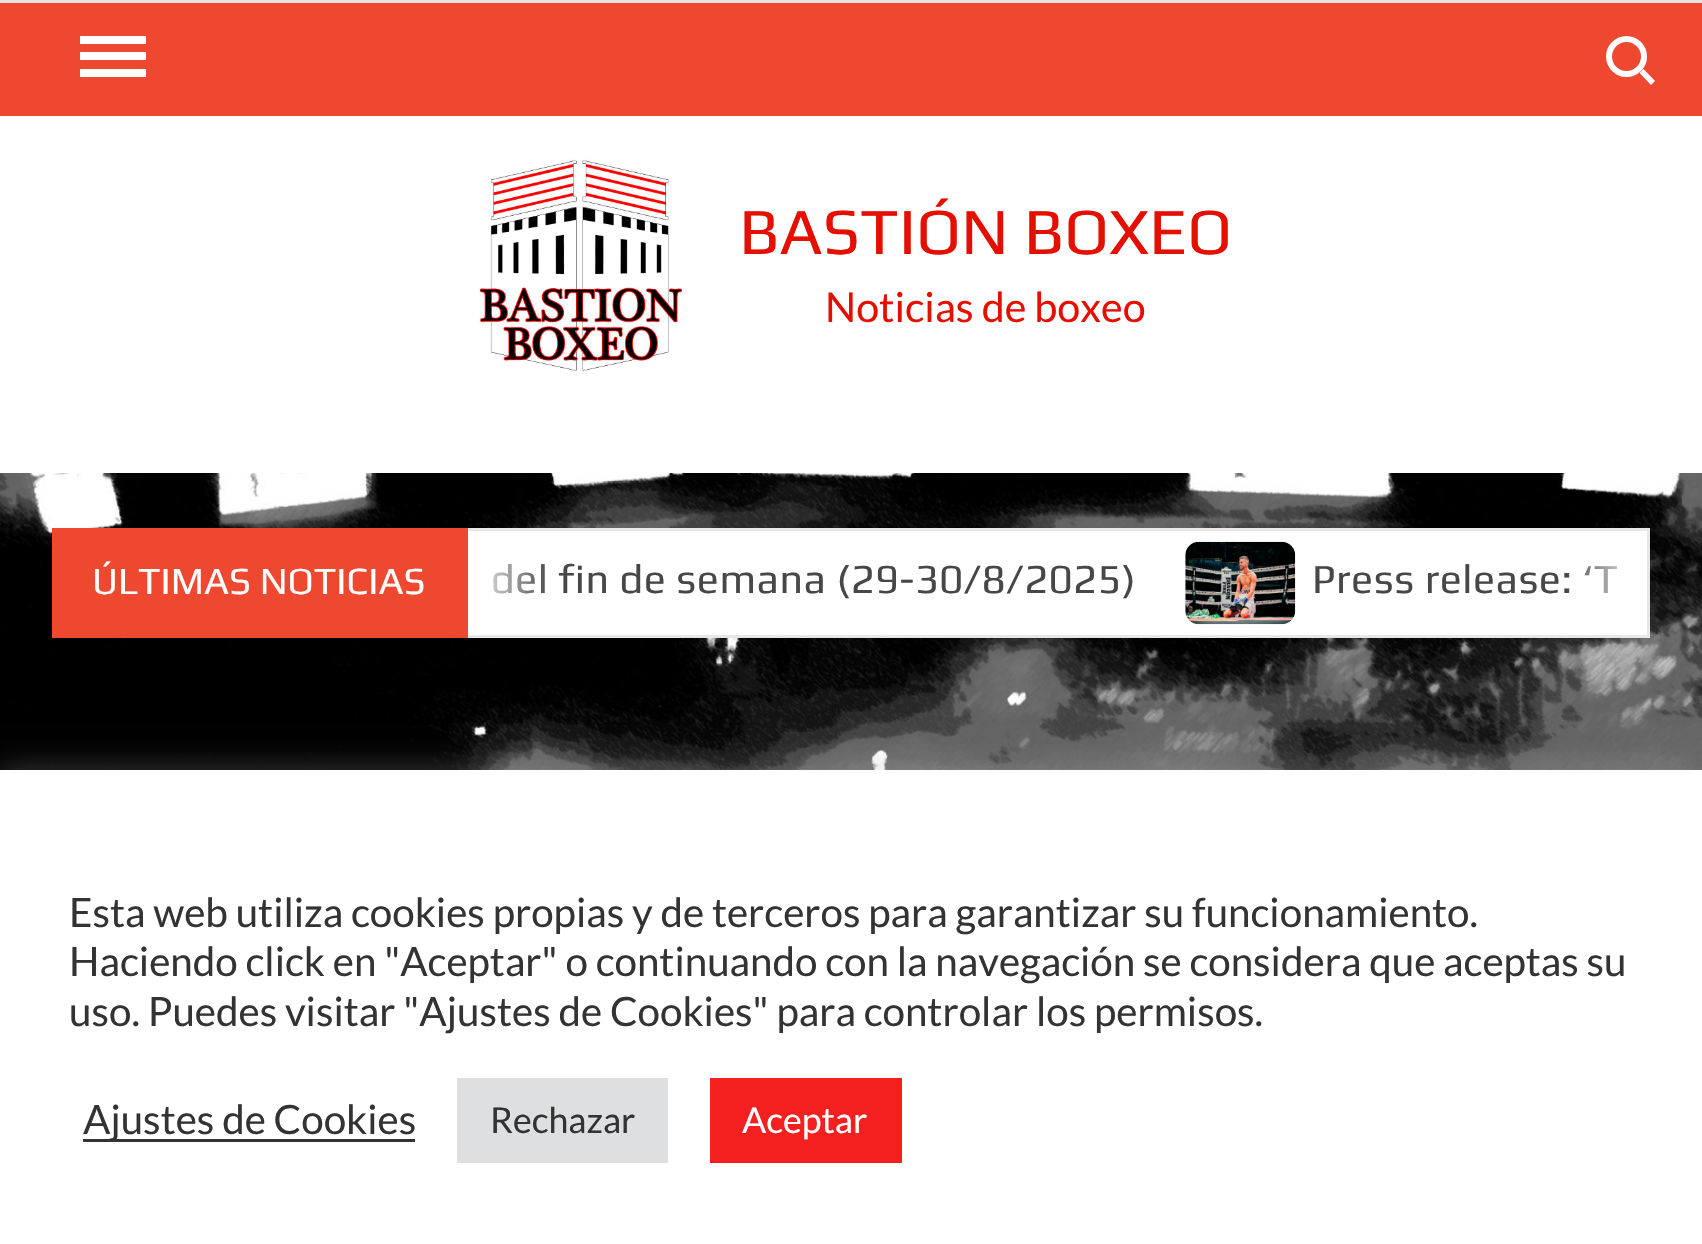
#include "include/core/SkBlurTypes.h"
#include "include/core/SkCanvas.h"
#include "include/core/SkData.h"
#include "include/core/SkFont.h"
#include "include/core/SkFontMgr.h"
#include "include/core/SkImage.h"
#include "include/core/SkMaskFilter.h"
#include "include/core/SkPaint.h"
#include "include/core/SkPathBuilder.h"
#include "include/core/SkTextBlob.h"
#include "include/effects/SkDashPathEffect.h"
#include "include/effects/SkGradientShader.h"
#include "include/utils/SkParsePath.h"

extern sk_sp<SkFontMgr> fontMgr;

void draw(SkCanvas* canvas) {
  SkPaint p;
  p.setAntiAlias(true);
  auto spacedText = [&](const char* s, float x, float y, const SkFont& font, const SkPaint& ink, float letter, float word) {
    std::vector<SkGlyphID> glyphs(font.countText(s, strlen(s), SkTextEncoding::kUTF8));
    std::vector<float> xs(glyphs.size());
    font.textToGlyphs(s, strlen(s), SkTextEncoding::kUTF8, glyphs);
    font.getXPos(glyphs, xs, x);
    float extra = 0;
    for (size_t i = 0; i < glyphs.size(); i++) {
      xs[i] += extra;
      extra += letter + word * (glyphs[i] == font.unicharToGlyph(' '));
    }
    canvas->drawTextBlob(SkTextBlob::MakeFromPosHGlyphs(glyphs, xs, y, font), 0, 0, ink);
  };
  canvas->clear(SK_ColorWHITE);
  canvas->drawImageRect(SkImages::DeferredFromEncodedData(SkData::MakeFromFileName("images/1.png")), SkRect::MakeLTRB(0, 473, 1702, 770), SkSamplingOptions());
  p.setColor(SkColorSetRGB(228, 228, 228));
  canvas->drawRect(SkRect::MakeLTRB(0, 0, 1702, 3), p);
  p.setColor(SkColorSetRGB(238, 73, 48));
  canvas->drawRect(SkRect::MakeLTRB(0, 3, 1702, 116), p);
  p.setColor(SK_ColorWHITE);
  canvas->drawRect(SkRect::MakeLTRB(80, 52, 146, 60), p);
  canvas->drawRect(SkRect::MakeLTRB(80, 36, 146, 44), p);
  canvas->drawRect(SkRect::MakeLTRB(80, 69, 146, 77), p);
  p.setStyle(SkPaint::kStroke_Style);
  p.setStrokeWidth(6);
  canvas->drawCircle(1626.5f, 56.5f, 17.5f, p);
  p.setStyle(SkPaint::kFill_Style);
  canvas->drawPath(SkPathBuilder().moveTo(1643.5f, 69).lineTo(1655, 81).lineTo(1651, 85).lineTo(1639.5f, 73).close().detach(), p);
  canvas->drawImageRect(SkImages::DeferredFromEncodedData(SkData::MakeFromFileName("images/2.png")), SkRect::MakeLTRB(478, 159, 683, 372), SkSamplingOptions());
  canvas->drawRect(SkRect::MakeLTRB(468, 531, 1647, 635), p);
  p.setStyle(SkPaint::kStroke_Style);
  p.setStrokeWidth(3);
  p.setColor(SkColorSetRGB(231, 231, 231));
  canvas->drawRect(SkRect::MakeLTRB(53.5f, 529.5f, 1648.5f, 636.5f), p);
  p.setStyle(SkPaint::kFill_Style);
  p.setColor(SkColorSetRGB(238, 73, 48));
  canvas->drawRect(SkRect::MakeLTRB(52, 528, 468, 638), p);
  canvas->drawImageRect(SkImages::DeferredFromEncodedData(SkData::MakeFromFileName("images/3.png")), SkRect::MakeLTRB(1185, 541, 1296, 625), SkSamplingOptions());
  p.setColor(SkColorSetARGB(77, 172, 171, 171));
  p.setMaskFilter(SkMaskFilter::MakeBlur(kNormal_SkBlurStyle, 14));
  canvas->drawRect(SkRect::MakeLTRB(0, 767, 1702, 1243), p);
  p.setMaskFilter(nullptr);
  p.setColor(SK_ColorWHITE);
  canvas->drawRect(SkRect::MakeLTRB(0, 770, 1702, 1244), p);
  p.setColor(SkColorSetRGB(51, 51, 51));
  canvas->drawRect(SkRect::MakeLTRB(83, 1139, 415, 1142), p);
  p.setColor(SkColorSetRGB(222, 223, 224));
  canvas->drawRect(SkRect::MakeLTRB(457, 1078, 668, 1163), p);
  p.setColor(SkColorSetRGB(244, 31, 31));
  canvas->drawRect(SkRect::MakeLTRB(710, 1078, 902, 1163), p);
  SkFont font1(fontMgr->matchFamilyStyle("Play", SkFontStyle::Normal()), 66);
  font1.setSubpixel(true);
  p.setColor(SkColorSetRGB(229, 15, 0));
  canvas->drawString("BASTIÓN BOXEO", 739, 254, font1, p);
  SkFont font2(fontMgr->matchFamilyStyle("Lato", SkFontStyle::Normal()), 41.25f);
  font2.setSubpixel(true);
  canvas->drawString("Noticias de boxeo", 825, 322, font2, p);
  SkFont font3(fontMgr->matchFamilyStyle("Play", SkFontStyle::Normal()), 38.5f);
  font3.setSubpixel(true);
  p.setColor(SK_ColorWHITE);
  canvas->drawString("ÚLTIMAS NOTICIAS", 92, 594, font3, p);
  SkFont font4(fontMgr->matchFamilyStyle("Play", SkFontStyle::Normal()), 41.25f);
  font4.setSubpixel(true);
  p.setColor(SkColorSetRGB(71, 71, 71));
  spacedText("del fin de semana (29-30/8/2025)", 491, 593, font4, p, 0.55f, 0);
  {
    const SkColor colors[] = {SK_ColorWHITE, SkColorSetARGB(0, 255, 255, 255)};
    const float stops[] = {0, 1};
    const SkPoint ends[] = {{468, 583}, {550, 583}};
    p.setShader(SkGradientShader::MakeLinear(ends, colors, stops, 2, SkTileMode::kClamp));
    p.setAlpha(255);
  }
  canvas->drawRect(SkRect::MakeLTRB(493, 564, 545, 594), p);
  p.setShader(nullptr);
  p.setColor(SkColorSetRGB(71, 71, 71));
  spacedText("Press release: ‘T", 1312, 593, font4, p, 0.55f, 0);
  {
    const SkColor colors[] = {SkColorSetARGB(0, 255, 255, 255), SK_ColorWHITE};
    const float stops[] = {0, 1};
    const SkPoint ends[] = {{1565, 583}, {1647, 583}};
    p.setShader(SkGradientShader::MakeLinear(ends, colors, stops, 2, SkTileMode::kClamp));
    p.setAlpha(255);
  }
  canvas->drawRect(SkRect::MakeLTRB(1567, 566, 1618, 593), p);
  SkFont font5(fontMgr->matchFamilyStyle("Lato", SkFontStyle::Normal()), 40.35f);
  font5.setSubpixel(true);
  p.setShader(nullptr);
  p.setColor(SkColorSetRGB(51, 51, 51));
  canvas->drawString("Esta web utiliza cookies propias y de terceros para garantizar su funcionamiento.", 69, 927, font5, p);
  canvas->drawString("Haciendo click en \"Aceptar\" o continuando con la navegación se considera que aceptas su", 69, 976, font5, p);
  canvas->drawString("uso. Puedes visitar \"Ajustes de Cookies\" para controlar los permisos.", 69, 1026, font5, p);
  canvas->drawString("Ajustes de Cookies", 83, 1134, font5, p);
  SkFont font6(fontMgr->matchFamilyStyle("Lato", SkFontStyle::Normal()), 35.75f);
  font6.setSubpixel(true);
  canvas->drawString("Rechazar", 490, 1133, font6, p);
  p.setColor(SK_ColorWHITE);
  canvas->drawString("Aceptar", 742, 1133, font6, p);
}
